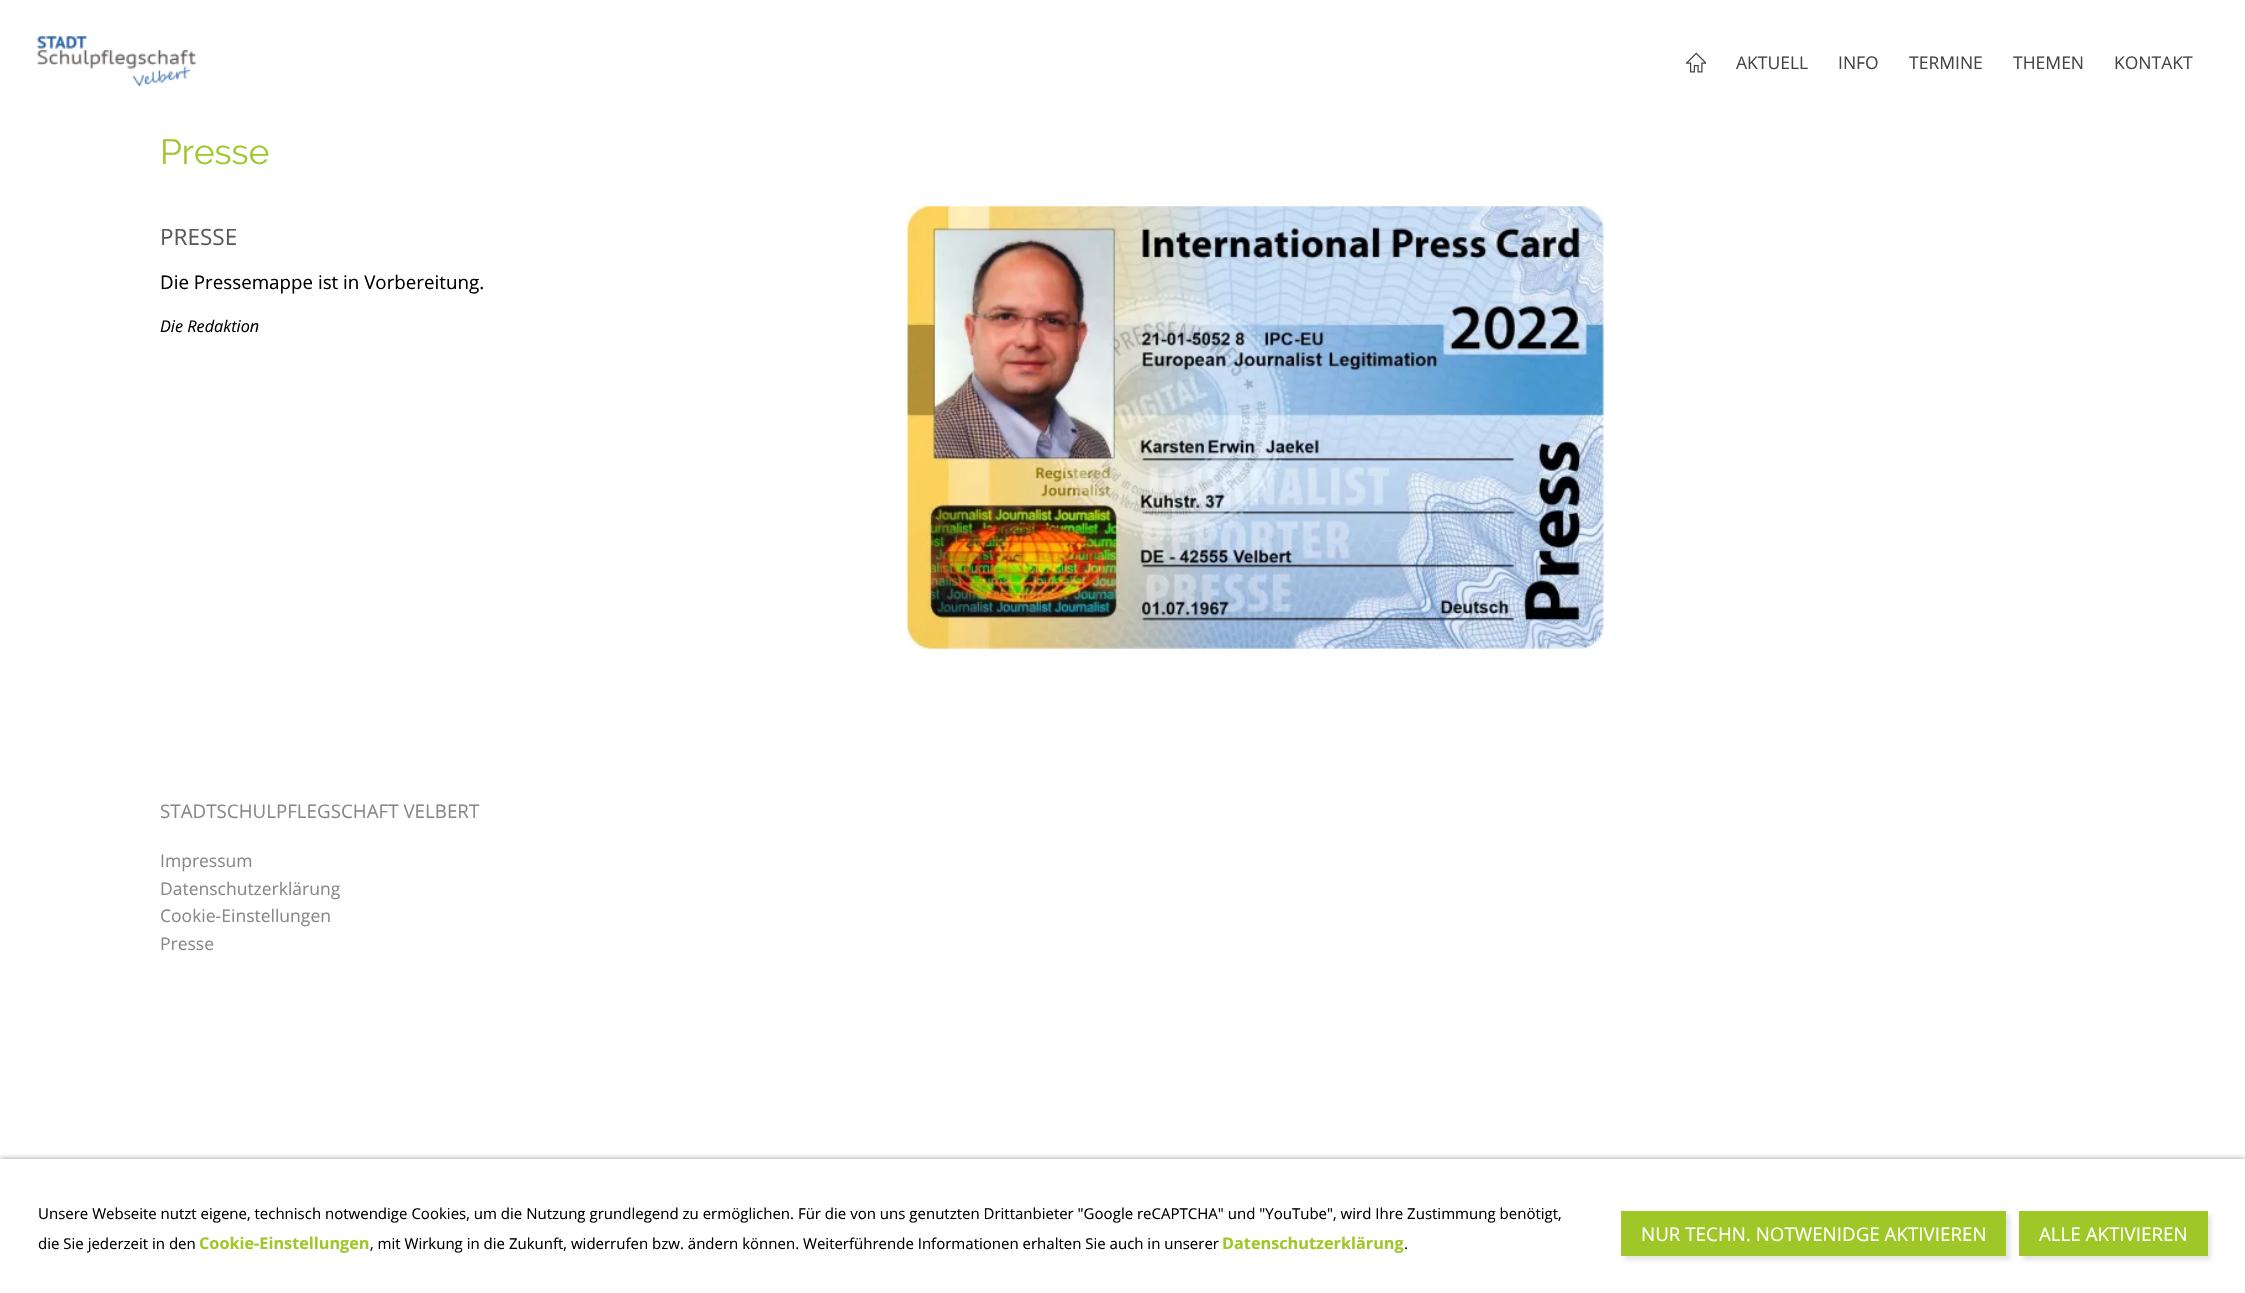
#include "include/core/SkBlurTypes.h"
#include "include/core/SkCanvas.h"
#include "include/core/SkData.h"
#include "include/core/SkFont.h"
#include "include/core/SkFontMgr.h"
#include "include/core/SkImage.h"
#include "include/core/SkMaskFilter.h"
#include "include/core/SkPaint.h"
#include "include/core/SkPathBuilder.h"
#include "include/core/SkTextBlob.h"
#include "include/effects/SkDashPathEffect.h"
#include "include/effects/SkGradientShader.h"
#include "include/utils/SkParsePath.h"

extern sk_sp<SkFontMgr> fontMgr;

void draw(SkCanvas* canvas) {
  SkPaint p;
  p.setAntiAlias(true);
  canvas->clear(SK_ColorWHITE);
  canvas->drawImageRect(SkImages::DeferredFromEncodedData(SkData::MakeFromFileName("images/1.png")), SkRect::MakeLTRB(37, 36, 197, 87), SkSamplingOptions());
  canvas->drawImageRect(SkImages::DeferredFromEncodedData(SkData::MakeFromFileName("images/2.png")), SkRect::MakeLTRB(1686, 52, 1706, 73), SkSamplingOptions());
  canvas->drawImageRect(SkImages::DeferredFromEncodedData(SkData::MakeFromFileName("images/3.png")), SkRect::MakeLTRB(907, 206, 1604, 649), SkSamplingOptions());
  canvas->save();
  canvas->clipRect(SkRect::MakeLTRB(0, 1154, 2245, 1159));
  p.setColor(SkColorSetARGB(102, 0, 0, 0));
  p.setMaskFilter(SkMaskFilter::MakeBlur(kNormal_SkBlurStyle, 3));
  canvas->drawRect(SkRect::MakeLTRB(0, 1159, 2245, 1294), p);
  p.setMaskFilter(nullptr);
  canvas->restore();
  p.setColor(SkColorSetARGB(26, 0, 0, 0));
  p.setMaskFilter(SkMaskFilter::MakeBlur(kNormal_SkBlurStyle, 2));
  canvas->drawRect(SkRect::MakeLTRB(1625, 1215, 2010, 1260), p);
  p.setMaskFilter(nullptr);
  p.setColor(SkColorSetRGB(159, 199, 40));
  canvas->drawRect(SkRect::MakeLTRB(1621, 1211, 2006, 1256), p);
  p.setColor(SkColorSetARGB(26, 0, 0, 0));
  p.setMaskFilter(SkMaskFilter::MakeBlur(kNormal_SkBlurStyle, 2));
  canvas->drawRect(SkRect::MakeLTRB(2023, 1215, 2211, 1260), p);
  p.setMaskFilter(nullptr);
  p.setColor(SkColorSetRGB(159, 199, 40));
  canvas->drawRect(SkRect::MakeLTRB(2019, 1211, 2208, 1256), p);
  SkFont font1(fontMgr->matchFamilyStyle("Open Sans", SkFontStyle::Normal()), 17.5f);
  font1.setSubpixel(true);
  p.setColor(SkColorSetRGB(68, 68, 68));
  canvas->drawString("AKTUELL", 1736, 69, font1, p);
  canvas->drawString("INFO", 1838, 69, font1, p);
  canvas->drawString("TERMINE", 1909, 69, font1, p);
  canvas->drawString("THEMEN", 2013, 69, font1, p);
  canvas->drawString("KONTAKT", 2114, 69, font1, p);
  SkFont font2(fontMgr->matchFamilyStyle("Raleway", SkFontStyle::Normal()), 35);
  font2.setSubpixel(true);
  p.setColor(SkColorSetRGB(159, 199, 40));
  canvas->drawString("Presse", 160, 164, font2, p);
  SkFont font3(fontMgr->matchFamilyStyle("Open Sans", SkFontStyle::Normal()), 22.5f);
  font3.setSubpixel(true);
  p.setColor(SkColorSetRGB(90, 90, 90));
  canvas->drawString("PRESSE", 160, 245, font3, p);
  SkFont font4(fontMgr->matchFamilyStyle("Open Sans", SkFontStyle::Normal()), 18.75f);
  font4.setSubpixel(true);
  p.setColor(SK_ColorBLACK);
  canvas->drawString("Die Pressemappe ist in Vorbereitung.", 160, 289, font4, p);
  SkFont font5(fontMgr->matchFamilyStyle("Open Sans", SkFontStyle::Italic()), 16.25f);
  font5.setSubpixel(true);
  canvas->drawString("Die Redaktion", 160, 332, font5, p);
  p.setColor(SkColorSetRGB(136, 136, 136));
  canvas->drawString("STADTSCHULPFLEGSCHAFT VELBERT", 160, 818, font4, p);
  canvas->drawString("Impressum", 160, 867, font1, p);
  canvas->drawString("Datenschutzerklärung", 160, 895, font1, p);
  canvas->drawString("Cookie-Einstellungen", 160, 922, font1, p);
  canvas->drawString("Presse", 160, 950, font1, p);
  SkFont font6(fontMgr->matchFamilyStyle("Open Sans", SkFontStyle::Normal()), 15);
  font6.setSubpixel(true);
  p.setColor(SK_ColorBLACK);
  canvas->drawString("Unsere Webseite nutzt eigene, technisch notwendige Cookies, um die Nutzung grundlegend zu ermöglichen. Für die von uns genutzten Drittanbieter \"Google reCAPTCHA\" und \"YouTube\", wird Ihre Zustimmung benötigt,", 38, 1219, font6, p);
  canvas->drawString("die Sie jederzeit in den", 38, 1249, font6, p);
  SkFont font7(fontMgr->matchFamilyStyle("Open Sans", SkFontStyle::Bold()), 16.25f);
  font7.setSubpixel(true);
  p.setColor(SkColorSetRGB(159, 199, 40));
  canvas->drawString("Cookie-Einstellungen", 199, 1249, font7, p);
  p.setColor(SK_ColorBLACK);
  canvas->drawString(", mit Wirkung in die Zukunft, widerrufen bzw. ändern können. Weiterführende Informationen erhalten Sie auch in unserer", 370, 1249, font6, p);
  p.setColor(SkColorSetRGB(159, 199, 40));
  canvas->drawString("Datenschutzerklärung", 1222, 1249, font7, p);
  p.setColor(SK_ColorBLACK);
  canvas->drawString(".", 1404, 1249, font6, p);
  p.setColor(SK_ColorWHITE);
  canvas->drawString("NUR TECHN. NOTWENIDGE AKTIVIEREN", 1641, 1241, font4, p);
  canvas->drawString("ALLE AKTIVIEREN", 2039, 1241, font4, p);
}
